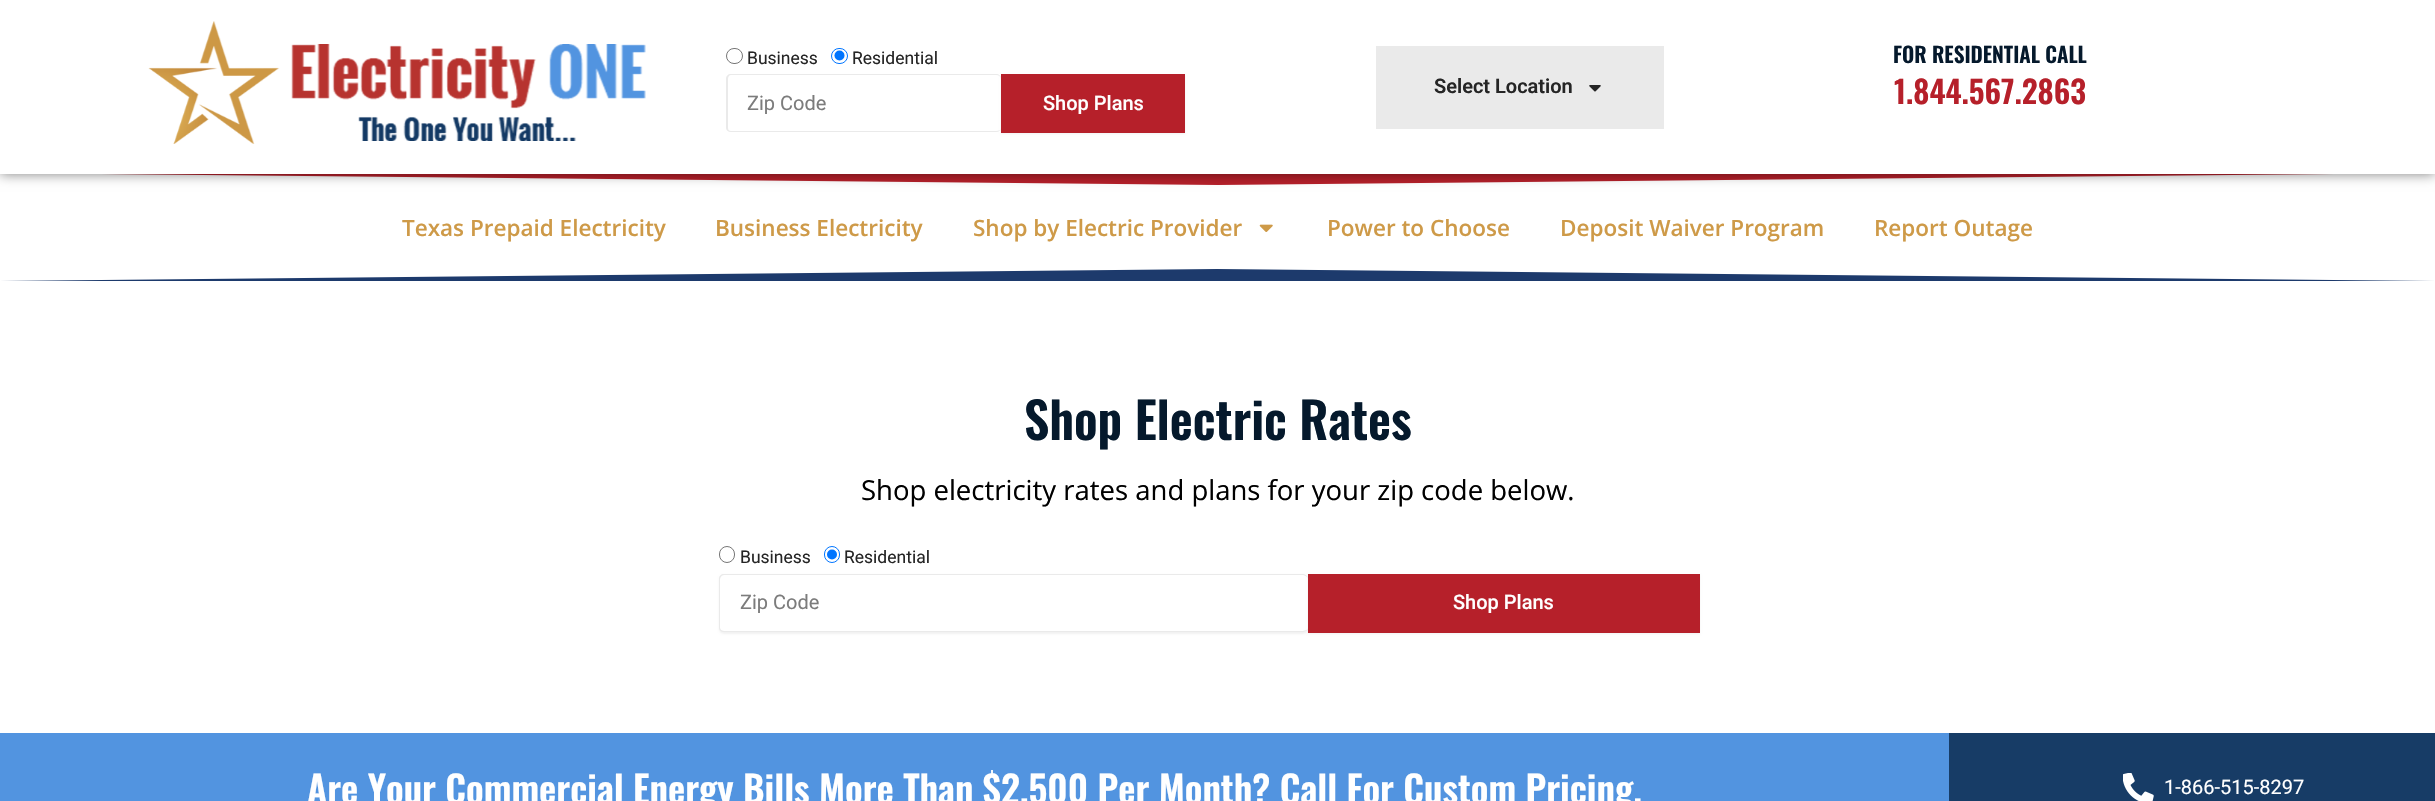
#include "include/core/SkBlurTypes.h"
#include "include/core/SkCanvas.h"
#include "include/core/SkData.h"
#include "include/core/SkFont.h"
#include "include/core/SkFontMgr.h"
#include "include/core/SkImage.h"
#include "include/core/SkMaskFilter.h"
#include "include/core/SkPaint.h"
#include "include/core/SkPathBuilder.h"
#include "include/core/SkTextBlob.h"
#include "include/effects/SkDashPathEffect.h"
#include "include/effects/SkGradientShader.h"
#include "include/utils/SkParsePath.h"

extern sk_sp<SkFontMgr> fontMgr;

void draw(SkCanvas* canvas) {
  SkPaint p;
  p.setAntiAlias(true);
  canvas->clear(SK_ColorWHITE);
  p.setColor(SkColorSetRGB(182, 32, 42));
  canvas->drawPath(SkPathBuilder().moveTo(1218, 185).lineTo(-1, 173).lineTo(-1, 172).lineTo(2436, 172).lineTo(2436, 173).close().detach(), p);
  p.setColor(SkColorSetARGB(128, 0, 0, 0));
  p.setMaskFilter(SkMaskFilter::MakeBlur(kNormal_SkBlurStyle, 6));
  canvas->drawRect(SkRect::MakeLTRB(0, 0, 2435, 174), p);
  p.setMaskFilter(nullptr);
  p.setColor(SK_ColorWHITE);
  canvas->drawRect(SkRect::MakeLTRB(0, 0, 2435, 174), p);
  canvas->drawImageRect(SkImages::DeferredFromEncodedData(SkData::MakeFromFileName("images/1.png")), SkRect::MakeLTRB(148, 21, 646, 144), SkSamplingOptions());
  p.setStyle(SkPaint::kStroke_Style);
  p.setStrokeWidth(1);
  p.setColor(SkColorSetRGB(118, 118, 118));
  canvas->drawRoundRect(SkRect::MakeLTRB(726.5f, 48.5f, 742.5f, 63.5f), 7.5f, 7.5f, p);
  p.setColor(SkColorSetRGB(0, 117, 255));
  canvas->drawRoundRect(SkRect::MakeLTRB(831.5f, 48.5f, 847.5f, 63.5f), 7.5f, 7.5f, p);
  p.setStyle(SkPaint::kFill_Style);
  canvas->drawCircle(839.5f, 55.5f, 5, p);
  p.setColor(SkColorSetRGB(234, 234, 234));
  canvas->drawPath(SkPathBuilder(SkPathFillType::kEvenOdd).moveTo(731, 74).lineTo(996, 74).cubicTo(999, 74, 1001, 76, 1001, 79).lineTo(1001, 128).cubicTo(1001, 130, 999, 132, 996, 132).lineTo(731, 132).cubicTo(728, 132, 726, 130, 726, 128).lineTo(726, 79).cubicTo(726, 76, 728, 74, 731, 74).close().moveTo(731, 75).lineTo(996, 75).cubicTo(999, 75, 1001, 77, 1001, 79).lineTo(1001, 128).cubicTo(1001, 130, 999, 131, 996, 131).lineTo(731, 131).cubicTo(729, 131, 728, 130, 728, 128).lineTo(728, 79).cubicTo(728, 77, 729, 75, 731, 75).close().detach(), p);
  p.setColor(SkColorSetARGB(13, 0, 0, 0));
  p.setMaskFilter(SkMaskFilter::MakeBlur(kNormal_SkBlurStyle, 1));
  canvas->drawRect(SkRect::MakeLTRB(1001, 75, 1185, 134), p);
  p.setMaskFilter(nullptr);
  p.setColor(SkColorSetRGB(182, 32, 42));
  canvas->drawRect(SkRect::MakeLTRB(1001, 74, 1185, 133), p);
  p.setColor(SkColorSetRGB(234, 234, 234));
  canvas->drawRect(SkRect::MakeLTRB(1376, 46, 1664, 129), p);
  canvas->drawImageRect(SkImages::DeferredFromEncodedData(SkData::MakeFromFileName("images/2.png")), SkRect::MakeLTRB(1589, 85, 1601, 92), SkSamplingOptions());
  canvas->drawImageRect(SkImages::DeferredFromEncodedData(SkData::MakeFromFileName("images/3.png")), SkRect::MakeLTRB(1259, 224, 1273, 232), SkSamplingOptions());
  canvas->save();
  canvas->clipRect(SkRect::MakeLTRB(0, 269, 2435, 281));
  p.setColor(SkColorSetRGB(29, 58, 108));
  canvas->drawPath(SkPathBuilder().moveTo(1217, 269).lineTo(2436, 281).lineTo(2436, 282).lineTo(-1, 282).lineTo(-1, 281).close().detach(), p);
  canvas->restore();
  p.setStyle(SkPaint::kStroke_Style);
  p.setColor(SkColorSetRGB(118, 118, 118));
  canvas->drawRoundRect(SkRect::MakeLTRB(719.5f, 546.5f, 734.5f, 562.5f), 7.5f, 7.5f, p);
  p.setColor(SkColorSetRGB(0, 117, 255));
  canvas->drawRoundRect(SkRect::MakeLTRB(824.5f, 546.5f, 839.5f, 562.5f), 7.5f, 7.5f, p);
  p.setStyle(SkPaint::kFill_Style);
  canvas->drawCircle(832, 554.5f, 5, p);
  p.setColor(SkColorSetARGB(13, 0, 0, 0));
  p.setMaskFilter(SkMaskFilter::MakeBlur(kNormal_SkBlurStyle, 1));
  canvas->drawRoundRect(SkRect::MakeLTRB(719, 575, 1308, 634), 5, 5, p);
  p.setMaskFilter(nullptr);
  p.setColor(SK_ColorWHITE);
  canvas->drawPath(SkPathBuilder().moveTo(724, 575).lineTo(1302, 575).cubicTo(1305, 575, 1308, 577, 1308, 579).lineTo(1308, 628).cubicTo(1308, 630, 1305, 631, 1302, 631).lineTo(724, 631).cubicTo(722, 631, 720, 630, 720, 628).lineTo(720, 579).cubicTo(720, 577, 722, 575, 724, 575).close().detach(), p);
  p.setColor(SkColorSetRGB(234, 234, 234));
  canvas->drawPath(SkPathBuilder(SkPathFillType::kEvenOdd).moveTo(724, 574).lineTo(1302, 574).cubicTo(1305, 574, 1308, 576, 1308, 579).lineTo(1308, 628).cubicTo(1308, 630, 1305, 632, 1302, 632).lineTo(724, 632).cubicTo(721, 632, 719, 630, 719, 628).lineTo(719, 579).cubicTo(719, 576, 721, 574, 724, 574).close().moveTo(724, 575).lineTo(1302, 575).cubicTo(1305, 575, 1308, 577, 1308, 579).lineTo(1308, 628).cubicTo(1308, 630, 1305, 631, 1302, 631).lineTo(724, 631).cubicTo(722, 631, 720, 630, 720, 628).lineTo(720, 579).cubicTo(720, 577, 722, 575, 724, 575).close().detach(), p);
  p.setColor(SkColorSetARGB(13, 0, 0, 0));
  p.setMaskFilter(SkMaskFilter::MakeBlur(kNormal_SkBlurStyle, 1));
  canvas->drawRect(SkRect::MakeLTRB(1308, 575, 1700, 634), p);
  p.setMaskFilter(nullptr);
  p.setColor(SkColorSetRGB(182, 32, 42));
  canvas->drawRect(SkRect::MakeLTRB(1308, 574, 1700, 633), p);
  p.setColor(SkColorSetRGB(82, 148, 224));
  canvas->drawRect(SkRect::MakeLTRB(0, 733, 1949, 801), p);
  p.setColor(SkColorSetRGB(23, 60, 102));
  canvas->drawRect(SkRect::MakeLTRB(1949, 733, 2435, 801), p);
  canvas->drawImageRect(SkImages::DeferredFromEncodedData(SkData::MakeFromFileName("images/4.png")), SkRect::MakeLTRB(2123, 773, 2154, 801), SkSamplingOptions());
  SkFont font1(fontMgr->matchFamilyStyle("Roboto", SkFontStyle::Normal()), 17.5f);
  font1.setSubpixel(true);
  p.setColor(SkColorSetRGB(37, 37, 37));
  canvas->drawString("Business", 747, 64, font1, p);
  canvas->drawString("Residential", 852, 64, font1, p);
  SkFont font2(fontMgr->matchFamilyStyle("Roboto", SkFontStyle::Normal()), 20);
  font2.setSubpixel(true);
  p.setColor(SkColorSetRGB(124, 124, 124));
  canvas->drawString("Zip Code", 747, 110, font2, p);
  SkFont font3(fontMgr->matchFamilyStyle("Roboto", SkFontStyle(500, SkFontStyle::kNormal_Width, SkFontStyle::kUpright_Slant)), 20);
  font3.setSubpixel(true);
  p.setColor(SK_ColorWHITE);
  canvas->drawString("Shop Plans", 1043, 110, font3, p);
  SkFont font4(fontMgr->matchFamilyStyle("Roboto", SkFontStyle(600, SkFontStyle::kNormal_Width, SkFontStyle::kUpright_Slant)), 20);
  font4.setSubpixel(true);
  p.setColor(SkColorSetRGB(37, 37, 37));
  canvas->drawString("Select Location", 1434, 93, font4, p);
  SkFont font5(fontMgr->matchFamilyStyle("Oswald", SkFontStyle(600, SkFontStyle::kNormal_Width, SkFontStyle::kUpright_Slant)), 21.25f);
  font5.setSubpixel(true);
  p.setColor(SkColorSetRGB(5, 25, 44));
  canvas->drawString("FOR RESIDENTIAL CALL", 1893, 63, font5, p);
  SkFont font6(fontMgr->matchFamilyStyle("Oswald", SkFontStyle(600, SkFontStyle::kNormal_Width, SkFontStyle::kUpright_Slant)), 31.25f);
  font6.setSubpixel(true);
  p.setColor(SkColorSetRGB(182, 32, 42));
  canvas->drawString("1.844.567.2863", 1894, 104, font6, p);
  SkFont font7(fontMgr->matchFamilyStyle("Open Sans", SkFontStyle(600, SkFontStyle::kNormal_Width, SkFontStyle::kUpright_Slant)), 22.5f);
  font7.setSubpixel(true);
  p.setColor(SkColorSetRGB(206, 154, 72));
  canvas->drawString("Texas Prepaid Electricity", 402, 236, font7, p);
  canvas->drawString("Business Electricity", 715, 236, font7, p);
  canvas->drawString("Shop by Electric Provider", 973, 236, font7, p);
  canvas->drawString("Power to Choose", 1327, 236, font7, p);
  canvas->drawString("Deposit Waiver Program", 1560, 236, font7, p);
  canvas->drawString("Report Outage", 1874, 236, font7, p);
  SkFont font8(fontMgr->matchFamilyStyle("Oswald", SkFontStyle(600, SkFontStyle::kNormal_Width, SkFontStyle::kUpright_Slant)), 50);
  font8.setSubpixel(true);
  p.setColor(SkColorSetRGB(5, 25, 44));
  canvas->drawString("Shop Electric Rates", 1024, 440, font8, p);
  SkFont font9(fontMgr->matchFamilyStyle("Open Sans", SkFontStyle::Normal()), 27.5f);
  font9.setSubpixel(true);
  p.setColor(SK_ColorBLACK);
  canvas->drawString("Shop electricity rates and plans for your zip code below.", 861, 500, font9, p);
  p.setColor(SkColorSetRGB(37, 37, 37));
  canvas->drawString("Business", 740, 563, font1, p);
  canvas->drawString("Residential", 844, 563, font1, p);
  p.setColor(SkColorSetRGB(124, 124, 124));
  canvas->drawString("Zip Code", 740, 609, font2, p);
  p.setColor(SK_ColorWHITE);
  canvas->drawString("Shop Plans", 1453, 609, font3, p);
  SkFont font10(fontMgr->matchFamilyStyle("Oswald", SkFontStyle(600, SkFontStyle::kNormal_Width, SkFontStyle::kUpright_Slant)), 37.5f);
  font10.setSubpixel(true);
  canvas->drawString("Are Your Commercial Energy Bills More Than $2,500 Per Month? Call For Custom Pricing.", 307, 804, font10, p);
  canvas->drawString("1-866-515-8297", 2164, 794, font2, p);
}
